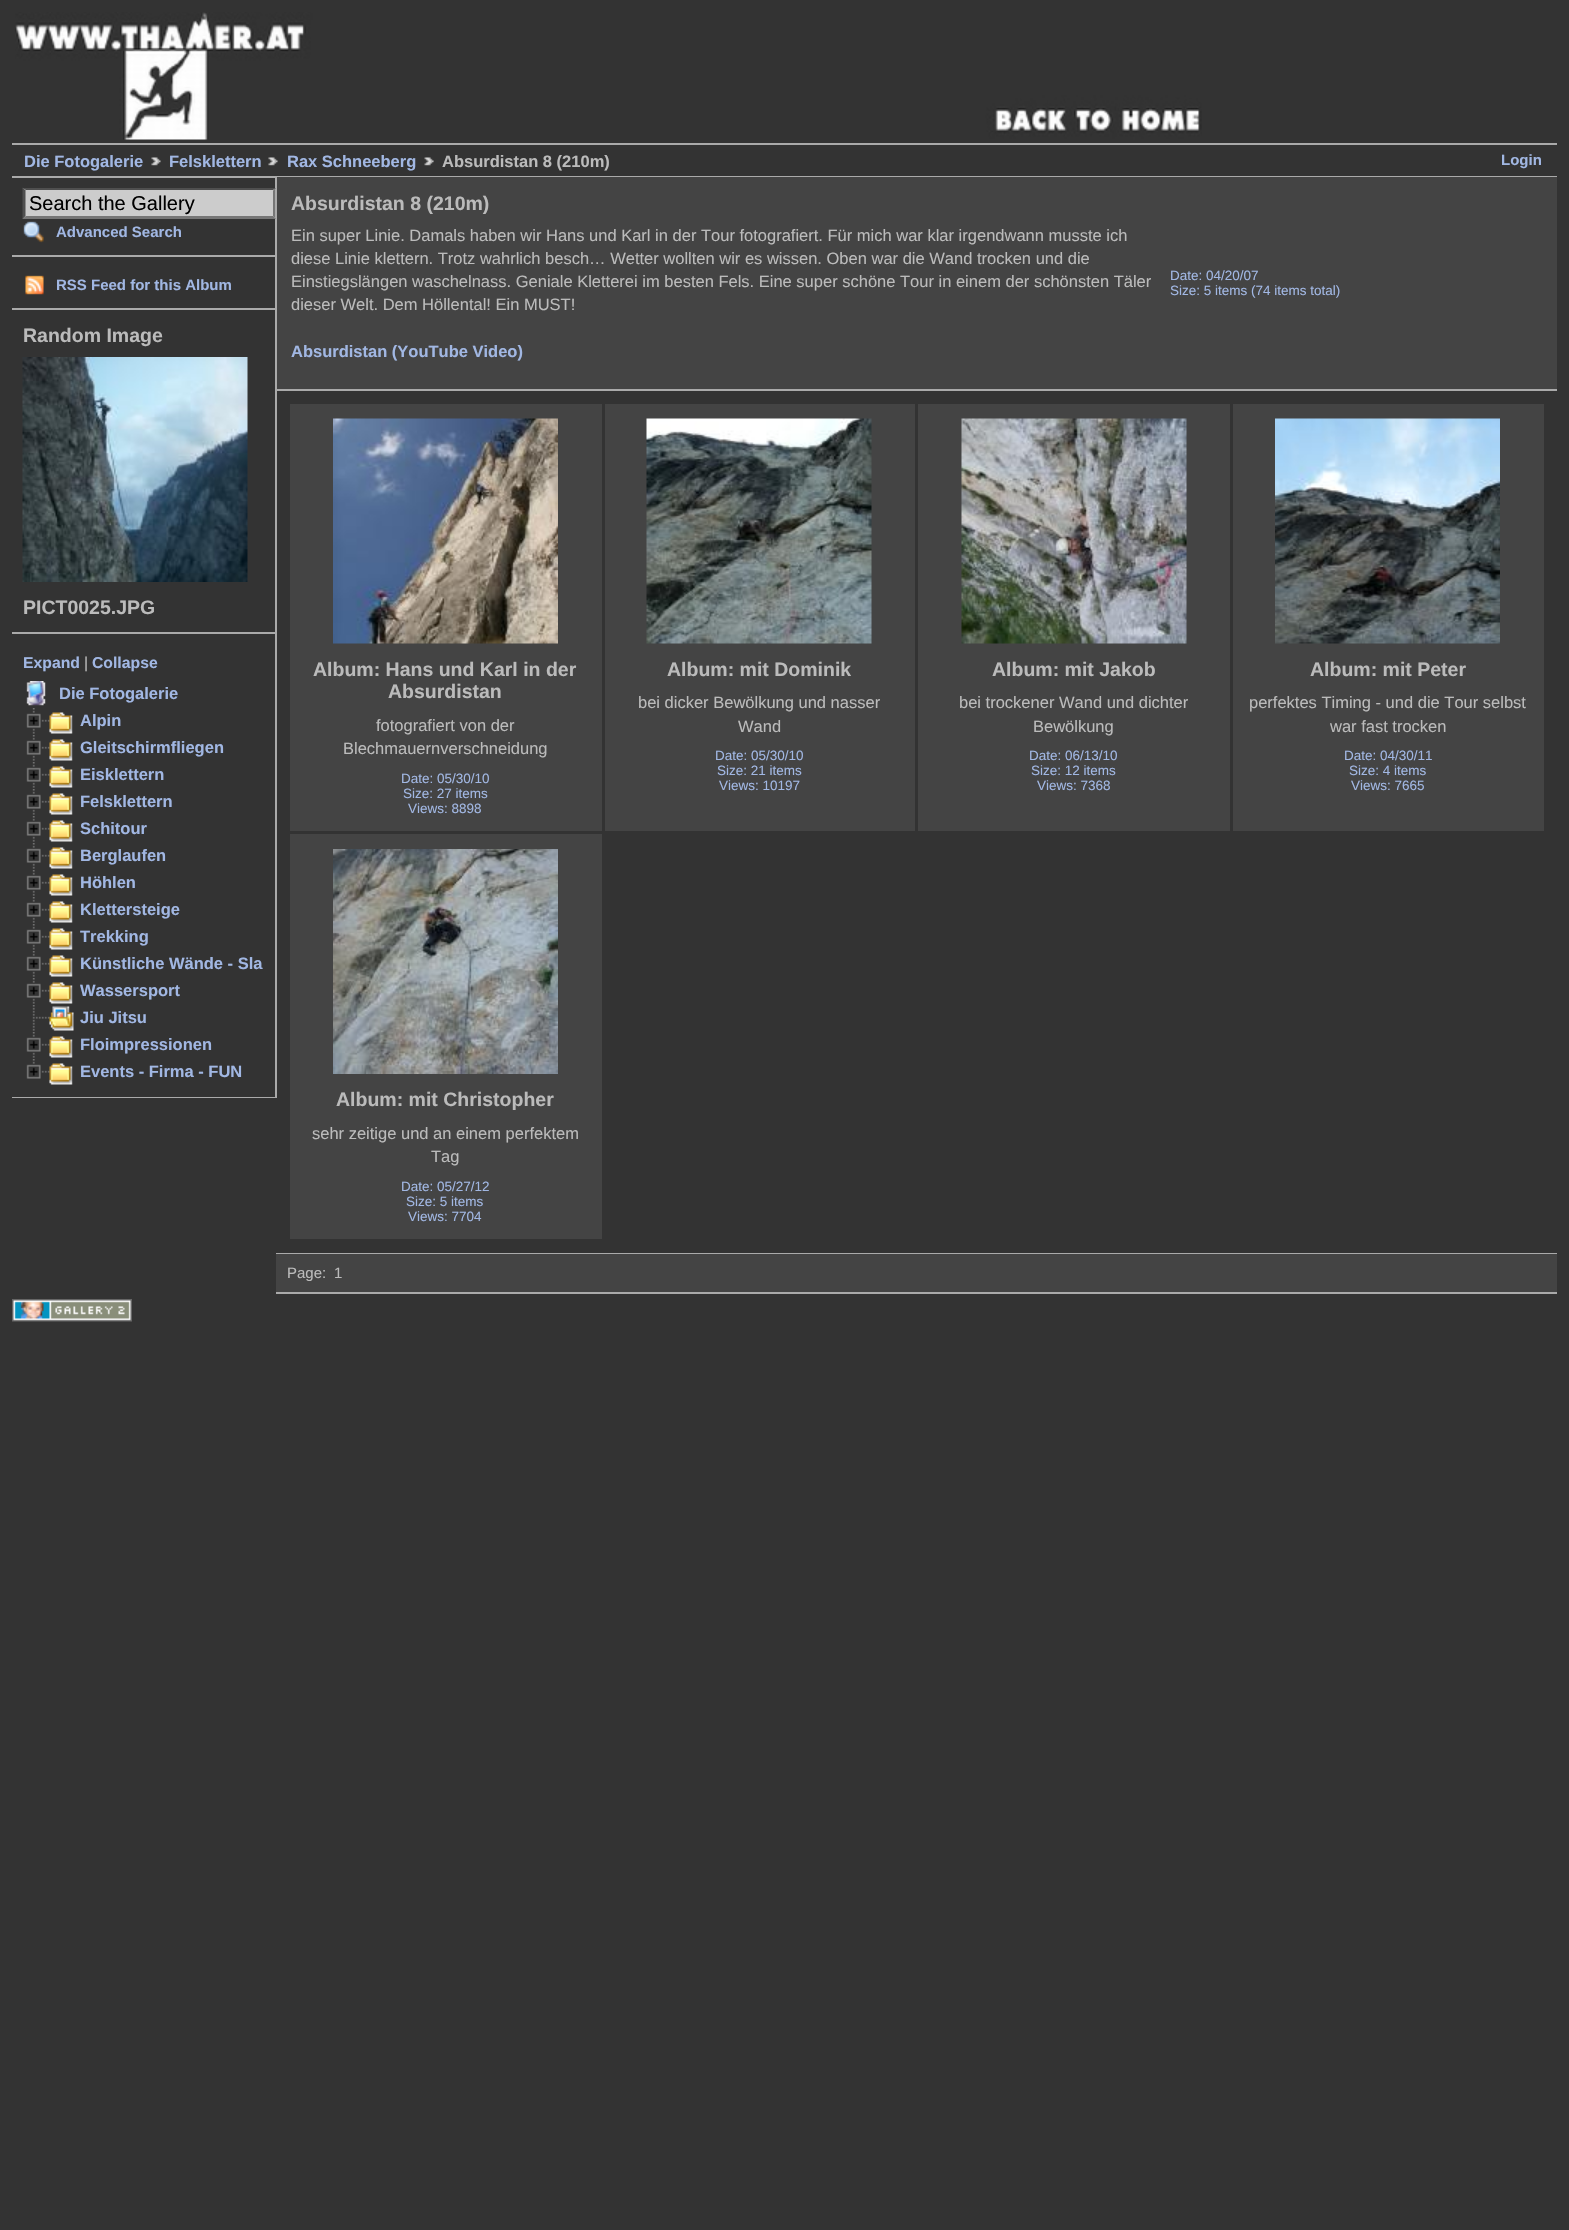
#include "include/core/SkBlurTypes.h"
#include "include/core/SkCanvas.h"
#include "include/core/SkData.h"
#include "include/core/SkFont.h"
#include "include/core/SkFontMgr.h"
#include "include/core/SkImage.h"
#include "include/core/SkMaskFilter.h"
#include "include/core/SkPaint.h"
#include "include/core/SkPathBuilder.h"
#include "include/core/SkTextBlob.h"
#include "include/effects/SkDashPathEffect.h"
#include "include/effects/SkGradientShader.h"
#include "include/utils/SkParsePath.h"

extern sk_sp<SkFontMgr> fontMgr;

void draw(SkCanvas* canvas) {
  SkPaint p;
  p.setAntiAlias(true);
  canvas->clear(SkColorSetRGB(51, 51, 51));
  canvas->drawImageRect(SkImages::DeferredFromEncodedData(SkData::MakeFromFileName("images/1.png")), SkRect::MakeLTRB(15, 12, 1202, 140), SkSamplingOptions());
  p.setColor(SkColorSetRGB(170, 170, 170));
  canvas->drawRect(SkRect::MakeLTRB(12, 143, 1557, 145), p);
  canvas->drawRect(SkRect::MakeLTRB(12, 176, 1557, 178), p);
  canvas->drawImageRect(SkImages::DeferredFromEncodedData(SkData::MakeFromFileName("images/2.png")), SkRect::MakeLTRB(151, 157, 161, 166), SkSamplingOptions());
  canvas->drawImageRect(SkImages::DeferredFromEncodedData(SkData::MakeFromFileName("images/2.png")), SkRect::MakeLTRB(268, 157, 278, 166), SkSamplingOptions());
  canvas->drawImageRect(SkImages::DeferredFromEncodedData(SkData::MakeFromFileName("images/3.png")), SkRect::MakeLTRB(424, 157, 434, 166), SkSamplingOptions());
  canvas->drawRect(SkRect::MakeLTRB(276, 389, 1557, 391), p);
  canvas->drawRect(SkRect::MakeLTRB(275, 177, 277, 1098), p);
  canvas->drawRect(SkRect::MakeLTRB(12, 255, 275, 257), p);
  p.setColor(SkColorSetRGB(204, 204, 204));
  canvas->drawRect(SkRect::MakeLTRB(23, 188, 275, 219), p);
  p.setColor(SkColorSetRGB(79, 79, 79));
  canvas->drawPath(SkPathBuilder().moveTo(22, 188).lineTo(276, 188).lineTo(273, 190).lineTo(26, 190).close().detach(), p);
  canvas->save();
  canvas->clipRect(SkRect::MakeLTRB(12, 177, 275, 1098));
  p.setColor(SkColorSetRGB(118, 118, 118));
  canvas->drawPath(SkPathBuilder().moveTo(276, 187.5f).lineTo(276, 219).lineTo(273, 216).lineTo(273, 190.5f).close().detach(), p);
  canvas->restore();
  canvas->drawPath(SkPathBuilder().moveTo(276, 219).lineTo(22, 219).lineTo(26, 216).lineTo(273, 216).close().detach(), p);
  p.setColor(SkColorSetRGB(79, 79, 79));
  canvas->drawPath(SkPathBuilder().moveTo(22.5f, 219).lineTo(22.5f, 187.5f).lineTo(25.5f, 190.5f).lineTo(25.5f, 216).close().detach(), p);
  canvas->drawImageRect(SkImages::DeferredFromEncodedData(SkData::MakeFromFileName("images/4.png")), SkRect::MakeLTRB(23, 221, 44, 243), SkSamplingOptions());
  p.setColor(SkColorSetRGB(170, 170, 170));
  canvas->drawRect(SkRect::MakeLTRB(12, 308, 275, 310), p);
  canvas->drawImageRect(SkImages::DeferredFromEncodedData(SkData::MakeFromFileName("images/5.png")), SkRect::MakeLTRB(25, 275, 44, 295), SkSamplingOptions());
  canvas->drawRect(SkRect::MakeLTRB(12, 632, 275, 634), p);
  canvas->drawImageRect(SkImages::DeferredFromEncodedData(SkData::MakeFromFileName("images/6.png")), SkRect::MakeLTRB(22, 357, 248, 582), SkSamplingOptions());
  canvas->drawRect(SkRect::MakeLTRB(12, 1097, 275, 1098), p);
  canvas->drawImageRect(SkImages::DeferredFromEncodedData(SkData::MakeFromFileName("images/7.png")), SkRect::MakeLTRB(26, 681, 46, 706), SkSamplingOptions());
  canvas->drawImageRect(SkImages::DeferredFromEncodedData(SkData::MakeFromFileName("images/8.png")), SkRect::MakeLTRB(26, 708, 50, 734), SkSamplingOptions());
  canvas->drawImageRect(SkImages::DeferredFromEncodedData(SkData::MakeFromFileName("images/9.png")), SkRect::MakeLTRB(49, 712, 73, 734), SkSamplingOptions());
  canvas->drawImageRect(SkImages::DeferredFromEncodedData(SkData::MakeFromFileName("images/8.png")), SkRect::MakeLTRB(26, 735, 50, 761), SkSamplingOptions());
  canvas->drawImageRect(SkImages::DeferredFromEncodedData(SkData::MakeFromFileName("images/9.png")), SkRect::MakeLTRB(49, 739, 73, 761), SkSamplingOptions());
  canvas->drawImageRect(SkImages::DeferredFromEncodedData(SkData::MakeFromFileName("images/8.png")), SkRect::MakeLTRB(26, 762, 50, 788), SkSamplingOptions());
  canvas->drawImageRect(SkImages::DeferredFromEncodedData(SkData::MakeFromFileName("images/9.png")), SkRect::MakeLTRB(49, 766, 73, 788), SkSamplingOptions());
  canvas->drawImageRect(SkImages::DeferredFromEncodedData(SkData::MakeFromFileName("images/8.png")), SkRect::MakeLTRB(26, 789, 50, 815), SkSamplingOptions());
  canvas->drawImageRect(SkImages::DeferredFromEncodedData(SkData::MakeFromFileName("images/9.png")), SkRect::MakeLTRB(49, 793, 73, 815), SkSamplingOptions());
  canvas->drawImageRect(SkImages::DeferredFromEncodedData(SkData::MakeFromFileName("images/8.png")), SkRect::MakeLTRB(26, 816, 50, 842), SkSamplingOptions());
  canvas->drawImageRect(SkImages::DeferredFromEncodedData(SkData::MakeFromFileName("images/9.png")), SkRect::MakeLTRB(49, 820, 73, 842), SkSamplingOptions());
  canvas->drawImageRect(SkImages::DeferredFromEncodedData(SkData::MakeFromFileName("images/8.png")), SkRect::MakeLTRB(26, 843, 50, 869), SkSamplingOptions());
  canvas->drawImageRect(SkImages::DeferredFromEncodedData(SkData::MakeFromFileName("images/9.png")), SkRect::MakeLTRB(49, 847, 73, 869), SkSamplingOptions());
  canvas->drawImageRect(SkImages::DeferredFromEncodedData(SkData::MakeFromFileName("images/8.png")), SkRect::MakeLTRB(26, 870, 50, 896), SkSamplingOptions());
  canvas->drawImageRect(SkImages::DeferredFromEncodedData(SkData::MakeFromFileName("images/9.png")), SkRect::MakeLTRB(49, 874, 73, 896), SkSamplingOptions());
  canvas->drawImageRect(SkImages::DeferredFromEncodedData(SkData::MakeFromFileName("images/8.png")), SkRect::MakeLTRB(26, 897, 50, 923), SkSamplingOptions());
  canvas->drawImageRect(SkImages::DeferredFromEncodedData(SkData::MakeFromFileName("images/9.png")), SkRect::MakeLTRB(49, 901, 73, 923), SkSamplingOptions());
  canvas->drawImageRect(SkImages::DeferredFromEncodedData(SkData::MakeFromFileName("images/8.png")), SkRect::MakeLTRB(26, 924, 50, 950), SkSamplingOptions());
  canvas->drawImageRect(SkImages::DeferredFromEncodedData(SkData::MakeFromFileName("images/9.png")), SkRect::MakeLTRB(49, 928, 73, 950), SkSamplingOptions());
  canvas->drawImageRect(SkImages::DeferredFromEncodedData(SkData::MakeFromFileName("images/8.png")), SkRect::MakeLTRB(26, 951, 50, 977), SkSamplingOptions());
  canvas->drawImageRect(SkImages::DeferredFromEncodedData(SkData::MakeFromFileName("images/9.png")), SkRect::MakeLTRB(49, 955, 73, 977), SkSamplingOptions());
  canvas->drawImageRect(SkImages::DeferredFromEncodedData(SkData::MakeFromFileName("images/8.png")), SkRect::MakeLTRB(26, 978, 50, 1004), SkSamplingOptions());
  canvas->drawImageRect(SkImages::DeferredFromEncodedData(SkData::MakeFromFileName("images/9.png")), SkRect::MakeLTRB(49, 982, 73, 1004), SkSamplingOptions());
  canvas->drawImageRect(SkImages::DeferredFromEncodedData(SkData::MakeFromFileName("images/10.png")), SkRect::MakeLTRB(32, 1005, 50, 1031), SkSamplingOptions());
  canvas->drawImageRect(SkImages::DeferredFromEncodedData(SkData::MakeFromFileName("images/11.png")), SkRect::MakeLTRB(49, 1006, 74, 1031), SkSamplingOptions());
  canvas->drawImageRect(SkImages::DeferredFromEncodedData(SkData::MakeFromFileName("images/8.png")), SkRect::MakeLTRB(26, 1032, 50, 1058), SkSamplingOptions());
  canvas->drawImageRect(SkImages::DeferredFromEncodedData(SkData::MakeFromFileName("images/9.png")), SkRect::MakeLTRB(49, 1036, 73, 1058), SkSamplingOptions());
  canvas->drawImageRect(SkImages::DeferredFromEncodedData(SkData::MakeFromFileName("images/12.png")), SkRect::MakeLTRB(26, 1059, 50, 1079), SkSamplingOptions());
  canvas->drawImageRect(SkImages::DeferredFromEncodedData(SkData::MakeFromFileName("images/9.png")), SkRect::MakeLTRB(49, 1063, 73, 1085), SkSamplingOptions());
  p.setColor(SkColorSetRGB(68, 68, 68));
  canvas->drawRect(SkRect::MakeLTRB(277, 177, 1557, 389), p);
  p.setColor(SkColorSetRGB(170, 170, 170));
  canvas->drawRect(SkRect::MakeLTRB(276, 1253, 1557, 1254), p);
  p.setColor(SkColorSetRGB(68, 68, 68));
  canvas->drawRect(SkRect::MakeLTRB(290, 404, 602, 831), p);
  canvas->drawImageRect(SkImages::DeferredFromEncodedData(SkData::MakeFromFileName("images/13.png")), SkRect::MakeLTRB(333, 418, 558, 644), SkSamplingOptions());
  canvas->drawRect(SkRect::MakeLTRB(605, 404, 915, 831), p);
  canvas->drawImageRect(SkImages::DeferredFromEncodedData(SkData::MakeFromFileName("images/14.png")), SkRect::MakeLTRB(646, 418, 872, 644), SkSamplingOptions());
  canvas->drawRect(SkRect::MakeLTRB(918, 404, 1230, 831), p);
  canvas->drawImageRect(SkImages::DeferredFromEncodedData(SkData::MakeFromFileName("images/15.png")), SkRect::MakeLTRB(961, 418, 1187, 644), SkSamplingOptions());
  canvas->drawRect(SkRect::MakeLTRB(1233, 404, 1544, 831), p);
  canvas->drawImageRect(SkImages::DeferredFromEncodedData(SkData::MakeFromFileName("images/16.png")), SkRect::MakeLTRB(1275, 418, 1500, 644), SkSamplingOptions());
  canvas->drawRect(SkRect::MakeLTRB(290, 834, 602, 1239), p);
  canvas->drawImageRect(SkImages::DeferredFromEncodedData(SkData::MakeFromFileName("images/17.png")), SkRect::MakeLTRB(333, 849, 558, 1074), SkSamplingOptions());
  canvas->drawRect(SkRect::MakeLTRB(276, 1254, 1557, 1292), p);
  p.setColor(SkColorSetRGB(170, 170, 170));
  canvas->drawRect(SkRect::MakeLTRB(276, 1292, 1557, 1294), p);
  canvas->drawImageRect(SkImages::DeferredFromEncodedData(SkData::MakeFromFileName("images/18.png")), SkRect::MakeLTRB(12, 1299, 132, 1322), SkSamplingOptions());
  SkFont font1(fontMgr->matchFamilyStyle("Liberation Sans", SkFontStyle::Bold()), 16.5f);
  font1.setSubpixel(true);
  p.setColor(SkColorSetRGB(161, 183, 227));
  canvas->drawString("Die Fotogalerie", 24, 167, font1, p);
  canvas->drawString("Felsklettern", 169, 167, font1, p);
  canvas->drawString("Rax Schneeberg", 287, 167, font1, p);
  p.setColor(SkColorSetRGB(187, 187, 187));
  canvas->drawString("Absurdistan 8 (210m)", 442, 167, font1, p);
  SkFont font2(fontMgr->matchFamilyStyle("Liberation Sans", SkFontStyle::Bold()), 15);
  font2.setSubpixel(true);
  p.setColor(SkColorSetRGB(161, 183, 227));
  canvas->drawString("Login", 1501, 165, font2, p);
  SkFont font3(fontMgr->matchFamilyStyle("Liberation Sans", SkFontStyle::Normal()), 20);
  font3.setSubpixel(true);
  p.setColor(SK_ColorBLACK);
  canvas->drawString("Search the Gallery", 29, 210, font3, p);
  p.setColor(SkColorSetRGB(161, 183, 227));
  canvas->drawString("Advanced Search", 56, 237, font2, p);
  canvas->drawString("RSS Feed for this Album", 56, 290, font2, p);
  SkFont font4(fontMgr->matchFamilyStyle("Liberation Sans", SkFontStyle::Bold()), 19.5f);
  font4.setSubpixel(true);
  p.setColor(SkColorSetRGB(187, 187, 187));
  canvas->drawString("Random Image", 23, 342, font4, p);
  canvas->drawString("PICT0025.JPG", 23, 614, font4, p);
  SkFont font5(fontMgr->matchFamilyStyle("Liberation Sans", SkFontStyle::Bold()), 15.75f);
  font5.setSubpixel(true);
  p.setColor(SkColorSetRGB(161, 183, 227));
  canvas->drawString("Expand", 23, 668, font5, p);
  SkFont font6(fontMgr->matchFamilyStyle("Liberation Sans", SkFontStyle::Normal()), 15.75f);
  font6.setSubpixel(true);
  p.setColor(SkColorSetRGB(187, 187, 187));
  canvas->drawString("|", 84, 668, font6, p);
  p.setColor(SkColorSetRGB(161, 183, 227));
  canvas->drawString("Collapse", 92, 668, font5, p);
  canvas->drawString("Die Fotogalerie", 59, 699, font1, p);
  canvas->drawString("Alpin", 80, 726, font1, p);
  canvas->drawString("Gleitschirmfliegen", 80, 753, font1, p);
  canvas->drawString("Eisklettern", 80, 780, font1, p);
  canvas->drawString("Felsklettern", 80, 807, font1, p);
  canvas->drawString("Schitour", 80, 834, font1, p);
  canvas->drawString("Berglaufen", 80, 861, font1, p);
  canvas->drawString("Höhlen", 80, 888, font1, p);
  canvas->drawString("Klettersteige", 80, 915, font1, p);
  canvas->drawString("Trekking", 80, 942, font1, p);
  canvas->drawString("Künstliche Wände - Sla", 80, 969, font1, p);
  canvas->drawString("Wassersport", 80, 996, font1, p);
  canvas->drawString("Jiu Jitsu", 80, 1023, font1, p);
  canvas->drawString("Floimpressionen", 80, 1050, font1, p);
  canvas->drawString("Events - Firma - FUN", 80, 1077, font1, p);
  p.setColor(SkColorSetRGB(187, 187, 187));
  canvas->drawString("Absurdistan 8 (210m)", 291, 210, font4, p);
  SkFont font7(fontMgr->matchFamilyStyle("Liberation Sans", SkFontStyle::Normal()), 16.5f);
  font7.setSubpixel(true);
  canvas->drawString("Ein super Linie. Damals haben wir Hans und Karl in der Tour fotografiert. Für mich war klar irgendwann musste ich", 291, 241, font7, p);
  canvas->drawString("diese Linie klettern. Trotz wahrlich besch… Wetter wollten wir es wissen. Oben war die Wand trocken und die", 291, 264, font7, p);
  canvas->drawString("Einstiegslängen waschelnass. Geniale Kletterei im besten Fels. Eine super schöne Tour in einem der schönsten Täler", 291, 287, font7, p);
  canvas->drawString("dieser Welt. Dem Höllental! Ein MUST!", 291, 310, font7, p);
  p.setColor(SkColorSetRGB(161, 183, 227));
  canvas->drawString("Absurdistan (YouTube Video)", 291, 357, font1, p);
  SkFont font8(fontMgr->matchFamilyStyle("Liberation Sans", SkFontStyle::Normal()), 13.5f);
  font8.setSubpixel(true);
  canvas->drawString("Date: 04/20/07", 1170, 280, font8, p);
  canvas->drawString("Size: 5 items (74 items total)", 1170, 295, font8, p);
  p.setColor(SkColorSetRGB(187, 187, 187));
  canvas->drawString("Album: Hans und Karl in der", 313, 676, font4, p);
  canvas->drawString("Absurdistan", 388, 698, font4, p);
  canvas->drawString("fotografiert von der", 376, 731, font7, p);
  canvas->drawString("Blechmauernverschneidung", 343, 754, font7, p);
  p.setColor(SkColorSetRGB(161, 183, 227));
  canvas->drawString("Date: 05/30/10", 401, 783, font8, p);
  canvas->drawString("Size: 27 items", 403, 798, font8, p);
  canvas->drawString("Views: 8898", 408, 813, font8, p);
  p.setColor(SkColorSetRGB(187, 187, 187));
  canvas->drawString("Album: mit Dominik", 667, 676, font4, p);
  canvas->drawString("bei dicker Bewölkung und nasser", 638, 708, font7, p);
  canvas->drawString("Wand", 738, 732, font7, p);
  p.setColor(SkColorSetRGB(161, 183, 227));
  canvas->drawString("Date: 05/30/10", 715, 760, font8, p);
  canvas->drawString("Size: 21 items", 717, 775, font8, p);
  canvas->drawString("Views: 10197", 719, 790, font8, p);
  p.setColor(SkColorSetRGB(187, 187, 187));
  canvas->drawString("Album: mit Jakob", 992, 676, font4, p);
  canvas->drawString("bei trockener Wand und dichter", 959, 708, font7, p);
  canvas->drawString("Bewölkung", 1033, 732, font7, p);
  p.setColor(SkColorSetRGB(161, 183, 227));
  canvas->drawString("Date: 06/13/10", 1029, 760, font8, p);
  canvas->drawString("Size: 12 items", 1031, 775, font8, p);
  canvas->drawString("Views: 7368", 1037, 790, font8, p);
  p.setColor(SkColorSetRGB(187, 187, 187));
  canvas->drawString("Album: mit Peter", 1310, 676, font4, p);
  canvas->drawString("perfektes Timing - und die Tour selbst", 1249, 708, font7, p);
  canvas->drawString("war fast trocken", 1330, 732, font7, p);
  p.setColor(SkColorSetRGB(161, 183, 227));
  canvas->drawString("Date: 04/30/11", 1344, 760, font8, p);
  canvas->drawString("Size: 4 items", 1349, 775, font8, p);
  canvas->drawString("Views: 7665", 1351, 790, font8, p);
  p.setColor(SkColorSetRGB(187, 187, 187));
  canvas->drawString("Album: mit Christopher", 336, 1106, font4, p);
  canvas->drawString("sehr zeitige und an einem perfektem", 312, 1139, font7, p);
  canvas->drawString("Tag", 431, 1162, font7, p);
  p.setColor(SkColorSetRGB(161, 183, 227));
  canvas->drawString("Date: 05/27/12", 401, 1191, font8, p);
  canvas->drawString("Size: 5 items", 406, 1206, font8, p);
  canvas->drawString("Views: 7704", 408, 1221, font8, p);
  SkFont font9(fontMgr->matchFamilyStyle("Liberation Sans", SkFontStyle::Normal()), 15);
  font9.setSubpixel(true);
  p.setColor(SkColorSetRGB(187, 187, 187));
  canvas->drawString("Page:", 287, 1278, font9, p);
  canvas->drawString("1", 334, 1278, font9, p);
}
